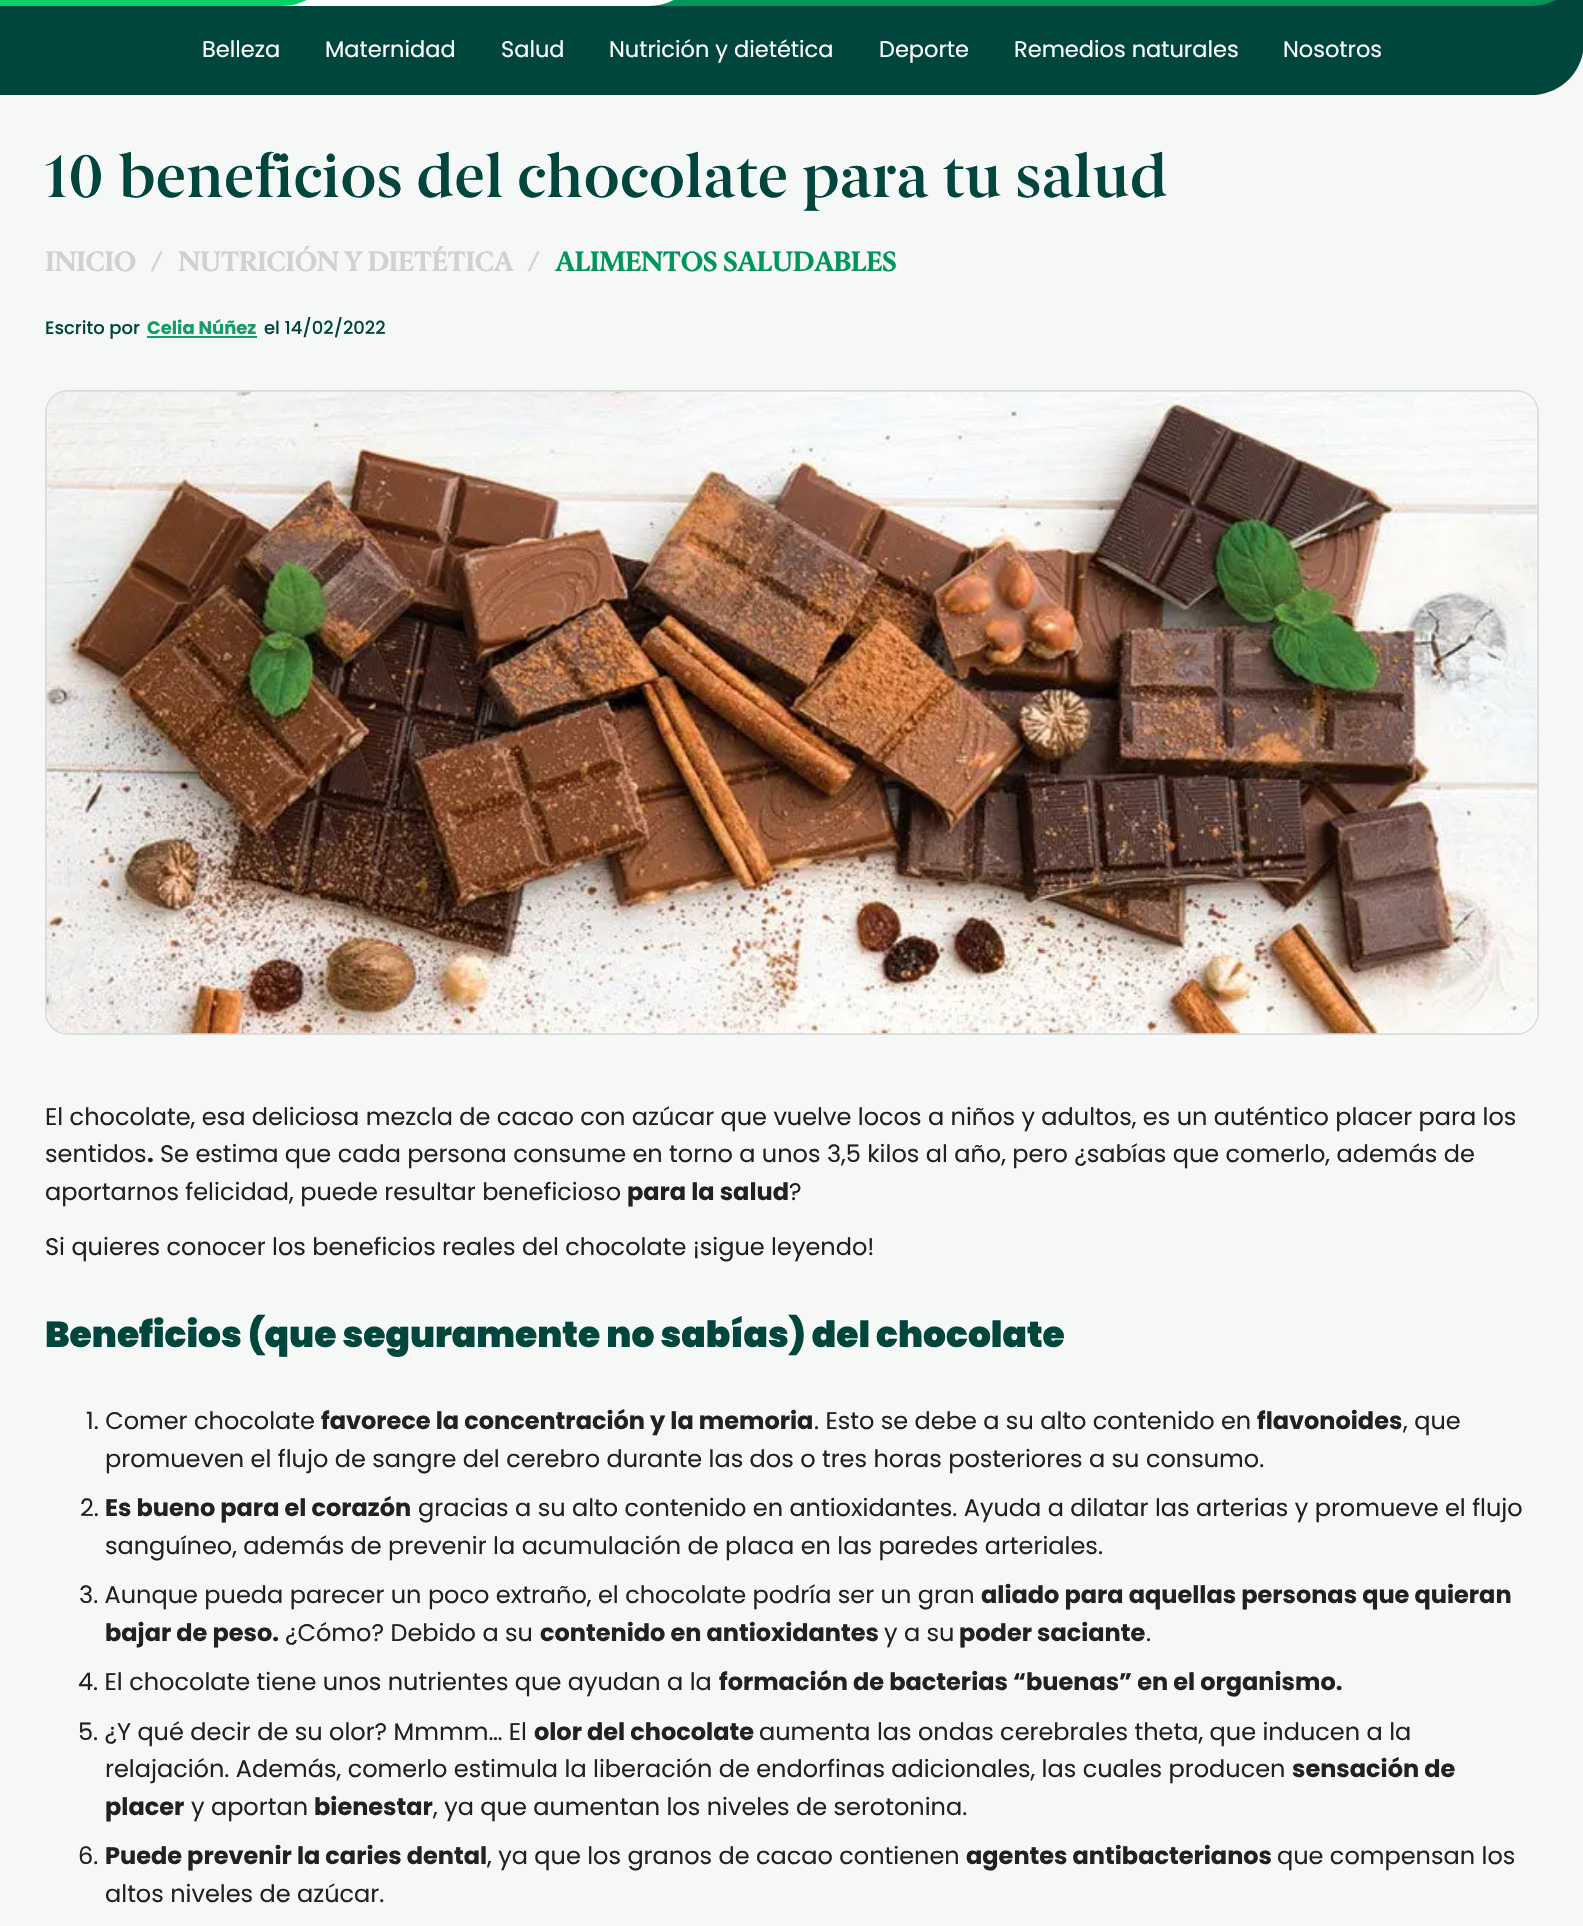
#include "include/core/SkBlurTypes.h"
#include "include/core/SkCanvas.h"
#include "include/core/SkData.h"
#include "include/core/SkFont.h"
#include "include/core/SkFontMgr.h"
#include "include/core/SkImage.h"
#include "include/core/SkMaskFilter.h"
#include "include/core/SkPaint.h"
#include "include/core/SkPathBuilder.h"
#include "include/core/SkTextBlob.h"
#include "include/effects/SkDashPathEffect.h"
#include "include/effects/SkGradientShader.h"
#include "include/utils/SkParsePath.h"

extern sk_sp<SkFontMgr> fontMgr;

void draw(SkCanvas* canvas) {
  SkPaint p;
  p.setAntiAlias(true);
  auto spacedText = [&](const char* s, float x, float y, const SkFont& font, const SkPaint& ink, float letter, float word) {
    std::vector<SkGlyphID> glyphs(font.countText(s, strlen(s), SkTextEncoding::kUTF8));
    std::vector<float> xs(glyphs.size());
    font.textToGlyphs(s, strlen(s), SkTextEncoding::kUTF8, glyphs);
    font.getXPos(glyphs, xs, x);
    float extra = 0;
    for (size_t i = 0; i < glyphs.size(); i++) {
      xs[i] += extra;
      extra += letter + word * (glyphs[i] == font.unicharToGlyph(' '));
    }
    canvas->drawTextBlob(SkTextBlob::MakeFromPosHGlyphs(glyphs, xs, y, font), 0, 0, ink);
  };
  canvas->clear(SkColorSetRGB(246, 248, 248));
  p.setColor(SkColorSetRGB(0, 70, 61));
  canvas->drawRect(SkRect::MakeLTRB(1531, 0, 1583, 6), p);
  p.setColor(SkColorSetRGB(0, 150, 90));
  canvas->drawPath(SkPathBuilder().moveTo(0, -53).lineTo(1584, -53).lineTo(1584, -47).cubicTo(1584, -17.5f, 1560.5f, 6, 1531, 6).lineTo(0, 6).close().detach(), p);
  p.setColor(SK_ColorWHITE);
  canvas->drawRect(SkRect::MakeLTRB(282, 0, 335, 6), p);
  p.setColor(SkColorSetRGB(0, 210, 100));
  canvas->drawPath(SkPathBuilder().moveTo(0, -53).lineTo(335, -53).lineTo(335, -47).cubicTo(335, -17.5f, 311.5f, 6, 282, 6).lineTo(0, 6).close().detach(), p);
  p.setColor(SK_ColorWHITE);
  canvas->drawPath(SkPathBuilder().moveTo(335, -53).lineTo(702, -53).lineTo(702, -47).cubicTo(702, -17.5f, 678.5f, 6, 649, 6).lineTo(335, 6).close().detach(), p);
  p.setColor(SkColorSetRGB(0, 70, 61));
  canvas->drawPath(SkPathBuilder().moveTo(0, 6).lineTo(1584, 6).lineTo(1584, 42).cubicTo(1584, 71.5f, 1560.5f, 95, 1531, 95).lineTo(0, 95).close().detach(), p);
  p.setColor(SkColorSetRGB(18, 157, 102));
  canvas->drawRect(SkRect::MakeLTRB(147, 336, 257, 338), p);
  p.setStyle(SkPaint::kStroke_Style);
  p.setStrokeWidth(2);
  p.setColor(SkColorSetRGB(218, 218, 218));
  canvas->drawRoundRect(SkRect::MakeLTRB(46, 391, 1538, 1034), 22, 22, p);
  canvas->drawImageRect(SkImages::DeferredFromEncodedData(SkData::MakeFromFileName("images/1.png")), SkRect::MakeLTRB(46, 391, 1538, 1034), SkSamplingOptions());
  SkFont font1(fontMgr->matchFamilyStyle("Poppins", SkFontStyle::Normal()), 22.5f);
  font1.setSubpixel(true);
  p.setStyle(SkPaint::kFill_Style);
  p.setColor(SK_ColorWHITE);
  canvas->drawString("Belleza", 202, 57, font1, p);
  canvas->drawString("Maternidad", 325, 57, font1, p);
  canvas->drawString("Salud", 501, 57, font1, p);
  canvas->drawString("Nutrición y dietética", 609, 57, font1, p);
  canvas->drawString("Deporte", 879, 57, font1, p);
  canvas->drawString("Remedios naturales", 1014, 57, font1, p);
  canvas->drawString("Nosotros", 1283, 57, font1, p);
  SkFont font2(fontMgr->matchFamilyStyle("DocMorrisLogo", SkFontStyle::Normal()), 60);
  font2.setSubpixel(true);
  p.setColor(SkColorSetRGB(0, 70, 61));
  spacedText("10 beneficios del chocolate para tu salud", 45, 197, font2, p, 0.9f, 0);
  SkFont font3(fontMgr->matchFamilyStyle("DocMorrisLogo", SkFontStyle::Bold()), 27);
  font3.setSubpixel(true);
  p.setColor(SkColorSetRGB(209, 209, 209));
  canvas->drawString("INICIO", 45, 271, font3, p);
  canvas->drawString("/", 151, 271, font3, p);
  canvas->drawString("NUTRICIÓN Y DIETÉTICA", 178, 271, font3, p);
  canvas->drawString("/", 528, 271, font3, p);
  p.setColor(SkColorSetRGB(0, 150, 90));
  canvas->drawString("ALIMENTOS SALUDABLES", 555, 271, font3, p);
  SkFont font4(fontMgr->matchFamilyStyle("Poppins", SkFontStyle(500, SkFontStyle::kNormal_Width, SkFontStyle::kUpright_Slant)), 18);
  font4.setSubpixel(true);
  p.setColor(SkColorSetRGB(0, 70, 61));
  canvas->drawString("Escrito por", 45, 334, font4, p);
  SkFont font5(fontMgr->matchFamilyStyle("Poppins", SkFontStyle::Bold()), 18);
  font5.setSubpixel(true);
  p.setColor(SkColorSetRGB(18, 157, 102));
  canvas->drawString("Celia Núñez", 147, 334, font5, p);
  p.setColor(SkColorSetRGB(0, 70, 61));
  canvas->drawString("el 14/02/2022", 264, 334, font4, p);
  SkFont font6(fontMgr->matchFamilyStyle("Poppins", SkFontStyle::Normal()), 24);
  font6.setSubpixel(true);
  p.setColor(SkColorSetRGB(33, 33, 33));
  canvas->drawString("El chocolate, esa deliciosa mezcla de cacao con azúcar que vuelve locos a niños y adultos, es un auténtico placer para los", 45, 1125, font6, p);
  canvas->drawString("sentidos", 45, 1162, font6, p);
  SkFont font7(fontMgr->matchFamilyStyle("Poppins", SkFontStyle::Bold()), 24);
  font7.setSubpixel(true);
  canvas->drawString(".", 147, 1162, font7, p);
  canvas->drawString("Se estima que cada persona consume en torno a unos 3,5 kilos al año, pero ¿sabías que comerlo, además de", 160, 1162, font6, p);
  canvas->drawString("aportarnos felicidad, puede resultar beneficioso", 45, 1200, font6, p);
  canvas->drawString("para la salud", 627, 1200, font7, p);
  canvas->drawString("?", 789, 1200, font6, p);
  canvas->drawString("Si quieres conocer los beneficios reales del chocolate ¡sigue leyendo!", 45, 1255, font6, p);
  SkFont font8(fontMgr->matchFamilyStyle("Poppins", SkFontStyle(900, SkFontStyle::kNormal_Width, SkFontStyle::kUpright_Slant)), 36);
  font8.setSubpixel(true);
  p.setColor(SkColorSetRGB(0, 70, 61));
  canvas->drawString("Beneficios (que seguramente no sabías) del chocolate", 45, 1347, font8, p);
  p.setColor(SkColorSetRGB(33, 33, 33));
  canvas->drawString("1. Comer chocolate", 86, 1429, font6, p);
  canvas->drawString("favorece la concentración y la memoria", 321, 1429, font7, p);
  canvas->drawString(". Esto se debe a su alto contenido en", 814, 1429, font6, p);
  canvas->drawString("flavonoides", 1257, 1429, font7, p);
  canvas->drawString(", que", 1403, 1429, font6, p);
  canvas->drawString("promueven el flujo de sangre del cerebro durante las dos o tres horas posteriores a su consumo.", 105, 1467, font6, p);
  canvas->drawString("2.", 80, 1516, font6, p);
  canvas->drawString("Es bueno para el corazón", 105, 1516, font7, p);
  canvas->drawString("gracias a su alto contenido en antioxidantes. Ayuda a dilatar las arterias y promueve el flujo", 418, 1516, font6, p);
  canvas->drawString("sanguíneo, además de prevenir la acumulación de placa en las paredes arteriales.", 105, 1554, font6, p);
  canvas->drawString("3. Aunque pueda parecer un poco extraño, el chocolate podría ser un gran", 79, 1603, font6, p);
  canvas->drawString("aliado para aquellas personas que quieran", 981, 1603, font7, p);
  canvas->drawString("bajar de peso.", 105, 1641, font7, p);
  canvas->drawString("¿Cómo? Debido a su", 285, 1641, font6, p);
  canvas->drawString("contenido en antioxidantes", 540, 1641, font7, p);
  canvas->drawString("y a su", 884, 1641, font6, p);
  canvas->drawString("poder saciante", 959, 1641, font7, p);
  canvas->drawString(".", 1146, 1641, font6, p);
  canvas->drawString("4. El chocolate tiene unos nutrientes que ayudan a la", 78, 1690, font6, p);
  canvas->drawString("formación de bacterias “buenas” en el organismo.", 719, 1690, font7, p);
  canvas->drawString("5. ¿Y qué decir de su olor? Mmmm… El", 78, 1740, font6, p);
  canvas->drawString("olor del chocolate", 534, 1740, font7, p);
  canvas->drawString("aumenta las ondas cerebrales theta, que inducen a la", 759, 1740, font6, p);
  canvas->drawString("relajación. Además, comerlo estimula la liberación de endorfinas adicionales, las cuales producen", 105, 1777, font6, p);
  canvas->drawString("sensación de", 1292, 1777, font7, p);
  canvas->drawString("placer", 105, 1815, font7, p);
  canvas->drawString("y aportan", 191, 1815, font6, p);
  canvas->drawString("bienestar", 314, 1815, font7, p);
  canvas->drawString(", ya que aumentan los niveles de serotonina.", 433, 1815, font6, p);
  canvas->drawString("6.", 78, 1864, font6, p);
  canvas->drawString("Puede prevenir la caries dental", 105, 1864, font7, p);
  canvas->drawString(", ya que los granos de cacao contienen", 487, 1864, font6, p);
  canvas->drawString("agentes antibacterianos", 966, 1864, font7, p);
  canvas->drawString("que compensan los", 1277, 1864, font6, p);
  canvas->drawString("altos niveles de azúcar.", 105, 1902, font6, p);
}
